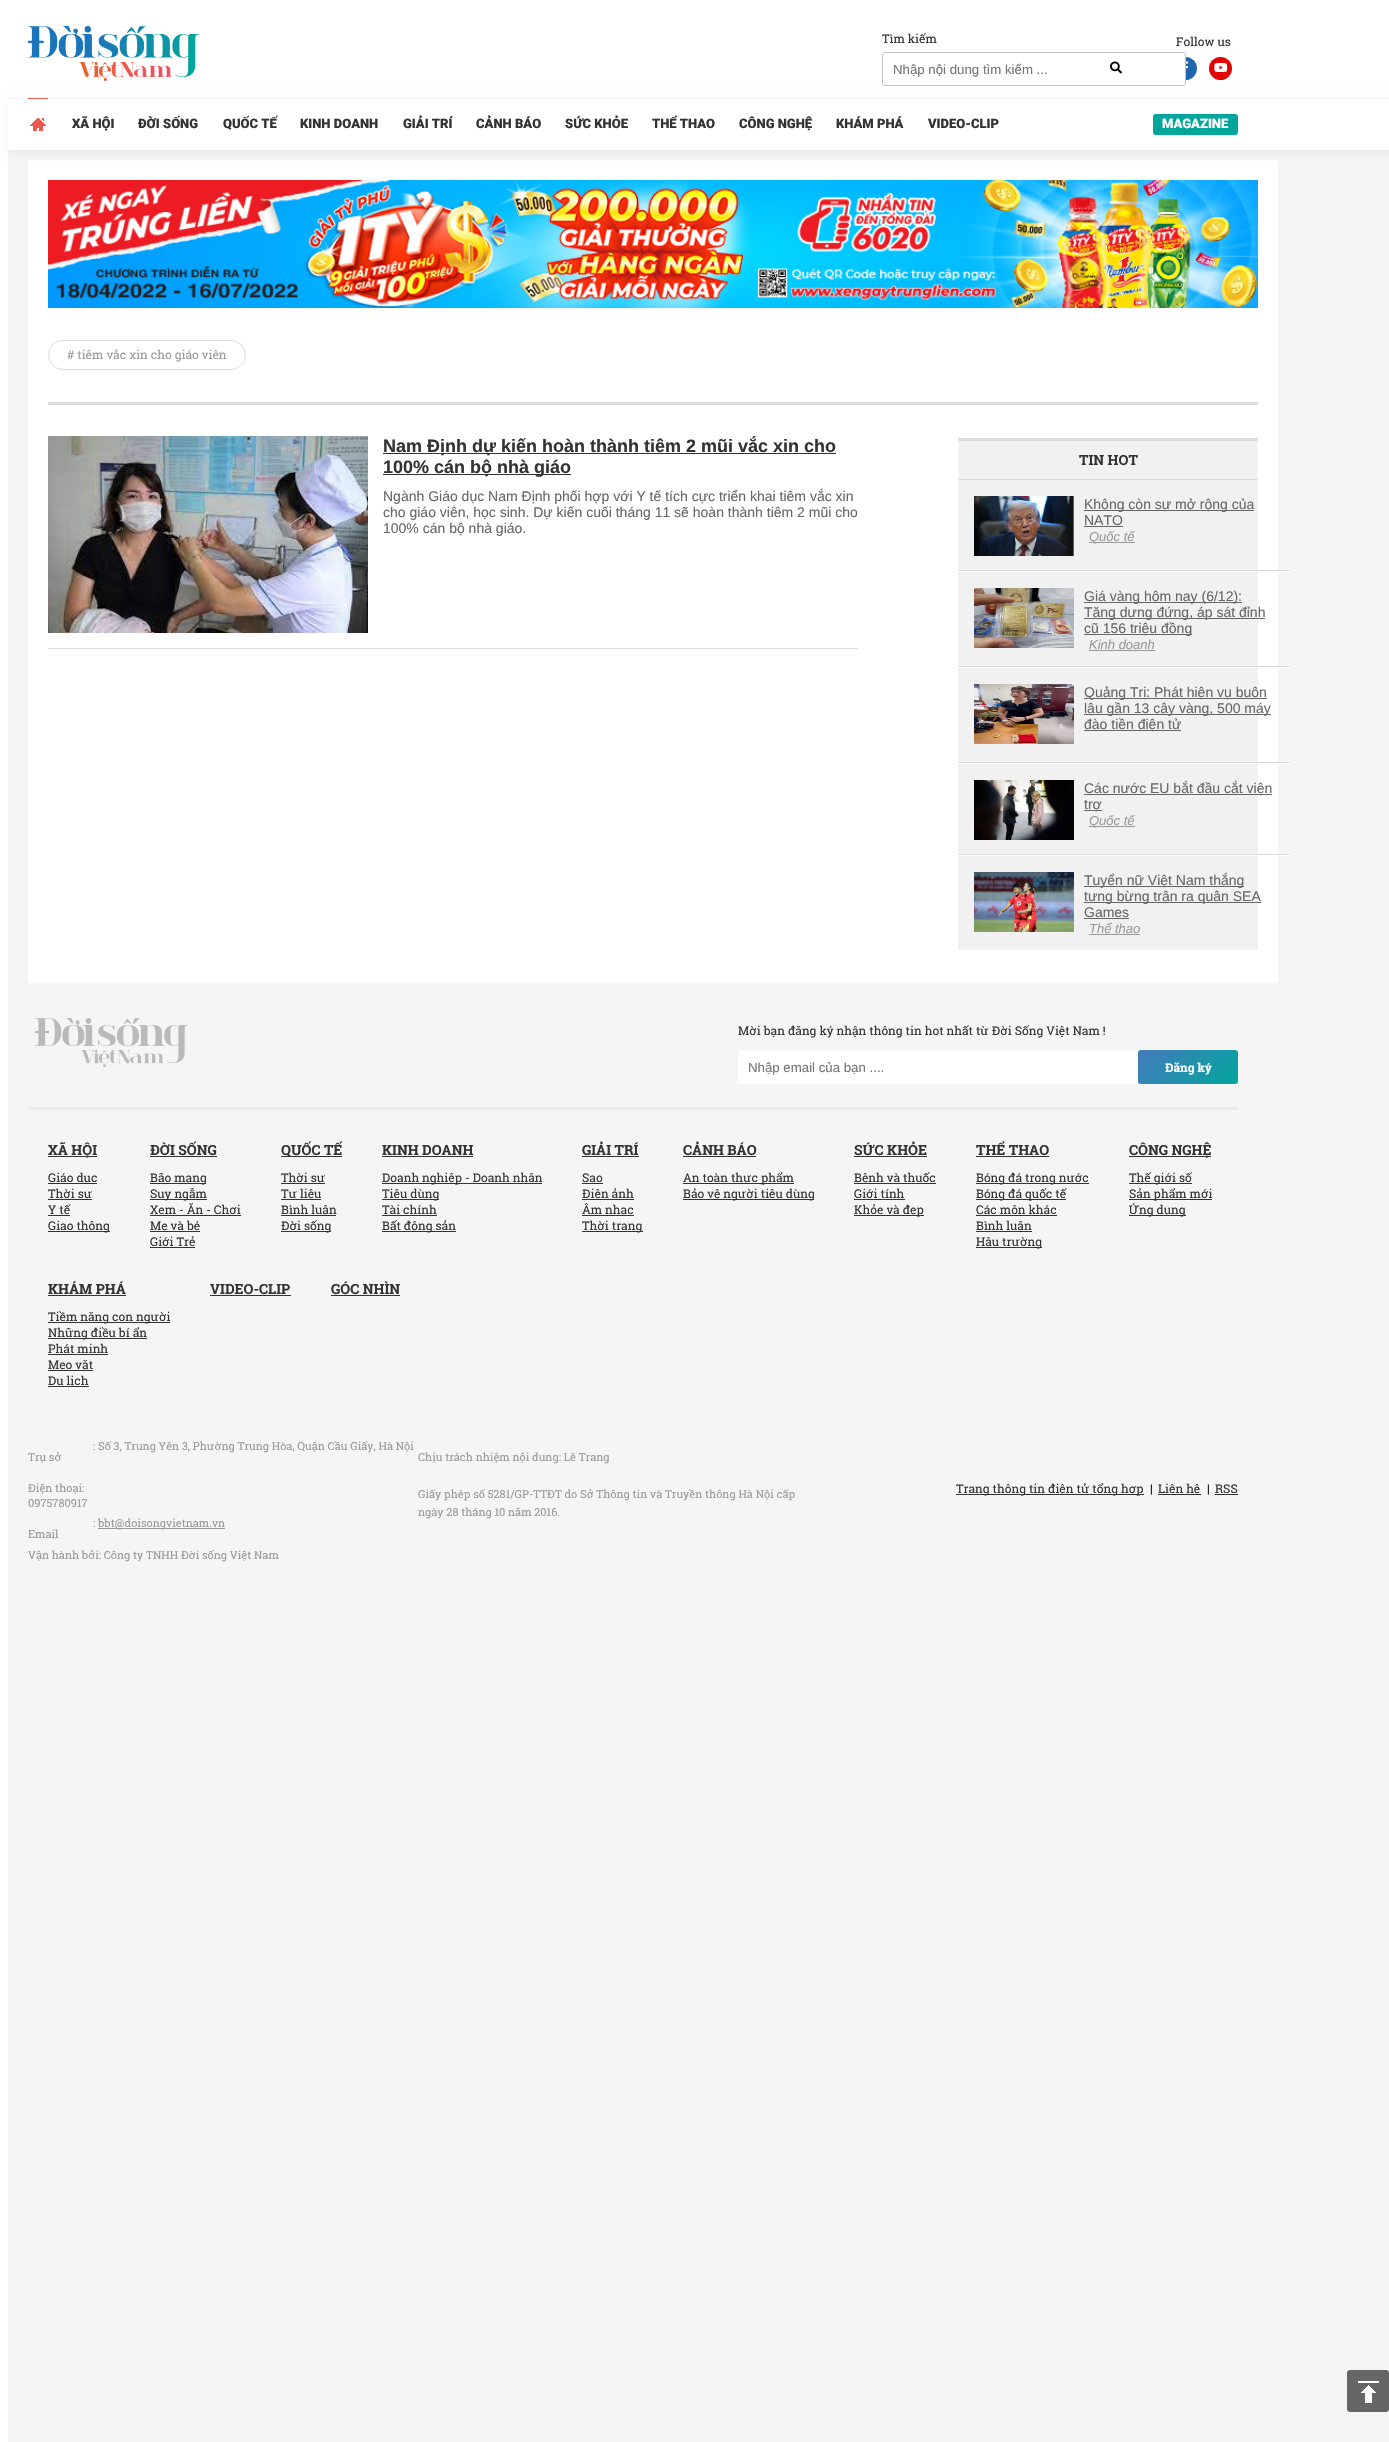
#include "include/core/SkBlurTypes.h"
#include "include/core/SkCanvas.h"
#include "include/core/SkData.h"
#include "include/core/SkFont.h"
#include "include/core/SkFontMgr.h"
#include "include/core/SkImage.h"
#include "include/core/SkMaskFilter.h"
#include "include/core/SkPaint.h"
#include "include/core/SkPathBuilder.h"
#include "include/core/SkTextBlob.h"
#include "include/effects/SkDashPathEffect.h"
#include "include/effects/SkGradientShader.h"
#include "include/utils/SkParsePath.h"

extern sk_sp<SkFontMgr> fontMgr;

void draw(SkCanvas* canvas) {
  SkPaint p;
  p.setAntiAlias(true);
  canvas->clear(SK_ColorWHITE);
  p.setColor(SkColorSetRGB(245, 245, 245));
  canvas->drawRect(SkRect::MakeLTRB(8, 150, 1389, 2442), p);
  canvas->drawImageRect(SkImages::DeferredFromEncodedData(SkData::MakeFromFileName("images/1.png")), SkRect::MakeLTRB(28, 26, 199, 81), SkSamplingOptions());
  p.setColor(SkColorSetRGB(33, 102, 173));
  canvas->drawCircle(1185.5f, 68.5f, 11.5f, p);
  p.setColor(SK_ColorWHITE);
  canvas->drawRoundRect(SkRect::MakeLTRB(882.5f, 52.5f, 1185.5f, 85.5f), 2.5f, 2.5f, p);
  p.setStyle(SkPaint::kStroke_Style);
  p.setStrokeWidth(1);
  p.setColor(SkColorSetRGB(193, 193, 193));
  canvas->drawRoundRect(SkRect::MakeLTRB(882.5f, 52.5f, 1185.5f, 85.5f), 2.5f, 2.5f, p);
  canvas->drawImageRect(SkImages::DeferredFromEncodedData(SkData::MakeFromFileName("images/2.png")), SkRect::MakeLTRB(1110, 61, 1122, 74), SkSamplingOptions());
  canvas->drawImageRect(SkImages::DeferredFromEncodedData(SkData::MakeFromFileName("images/3.png")), SkRect::MakeLTRB(1186, 61, 1189, 69), SkSamplingOptions());
  p.setStyle(SkPaint::kFill_Style);
  p.setColor(SkColorSetRGB(227, 1, 1));
  canvas->drawCircle(1220.5f, 68.5f, 11.5f, p);
  canvas->drawImageRect(SkImages::DeferredFromEncodedData(SkData::MakeFromFileName("images/4.png")), SkRect::MakeLTRB(1214, 63, 1228, 72), SkSamplingOptions());
  p.setColor(SK_ColorWHITE);
  canvas->drawRect(SkRect::MakeLTRB(28, 160, 1278, 983), p);
  p.setColor(SkColorSetARGB(13, 0, 0, 0));
  p.setMaskFilter(SkMaskFilter::MakeBlur(kNormal_SkBlurStyle, 5));
  canvas->drawRect(SkRect::MakeLTRB(8, 101, 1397, 153), p);
  p.setMaskFilter(nullptr);
  p.setColor(SK_ColorWHITE);
  canvas->drawRect(SkRect::MakeLTRB(8, 99, 1389, 150), p);
  p.setColor(SkColorSetRGB(244, 244, 244));
  canvas->drawRect(SkRect::MakeLTRB(8, 98, 1389, 99), p);
  canvas->drawImageRect(SkImages::DeferredFromEncodedData(SkData::MakeFromFileName("images/5.png")), SkRect::MakeLTRB(30, 118, 46, 131), SkSamplingOptions());
  p.setColor(SkColorSetRGB(235, 88, 79));
  canvas->drawRect(SkRect::MakeLTRB(28, 98, 48, 99), p);
  p.setColor(SkColorSetRGB(0, 165, 156));
  canvas->drawRoundRect(SkRect::MakeLTRB(1153, 114, 1238, 135), 3, 3, p);
  canvas->drawImageRect(SkImages::DeferredFromEncodedData(SkData::MakeFromFileName("images/6.png")), SkRect::MakeLTRB(48, 180, 1258, 308), SkSamplingOptions());
  p.setColor(SkColorSetRGB(221, 221, 221));
  canvas->drawRect(SkRect::MakeLTRB(48, 402, 1258, 405), p);
  p.setStyle(SkPaint::kStroke_Style);
  canvas->drawRoundRect(SkRect::MakeLTRB(48.5f, 340.5f, 245.5f, 369.5f), 14.5f, 14.5f, p);
  p.setStyle(SkPaint::kFill_Style);
  canvas->drawRect(SkRect::MakeLTRB(48, 648, 858, 649), p);
  canvas->drawImageRect(SkImages::DeferredFromEncodedData(SkData::MakeFromFileName("images/7.png")), SkRect::MakeLTRB(48, 436, 368, 633), SkSamplingOptions());
  p.setColor(SkColorSetRGB(51, 51, 51));
  canvas->drawRect(SkRect::MakeLTRB(383, 453, 836, 454), p);
  canvas->drawRect(SkRect::MakeLTRB(383, 474, 571, 475), p);
  p.setColor(SkColorSetRGB(241, 241, 241));
  canvas->drawRect(SkRect::MakeLTRB(958, 441, 1258, 950), p);
  p.setColor(SkColorSetRGB(221, 221, 221));
  canvas->drawRect(SkRect::MakeLTRB(958, 438, 1258, 441), p);
  canvas->drawRect(SkRect::MakeLTRB(958, 479, 1258, 480), p);
  canvas->drawRect(SkRect::MakeLTRB(958, 570, 1290, 571), p);
  canvas->drawImageRect(SkImages::DeferredFromEncodedData(SkData::MakeFromFileName("images/8.png")), SkRect::MakeLTRB(974, 496, 1074, 556), SkSamplingOptions());
  p.setColor(SkColorSetRGB(102, 102, 102));
  canvas->drawRect(SkRect::MakeLTRB(1084, 510, 1254, 511), p);
  canvas->drawRect(SkRect::MakeLTRB(1084, 526, 1123, 527), p);
  p.setColor(SkColorSetRGB(153, 153, 153));
  canvas->drawRect(SkRect::MakeLTRB(1089, 542, 1135, 543), p);
  p.setColor(SK_ColorWHITE);
  canvas->drawRect(SkRect::MakeLTRB(958, 571, 1290, 572), p);
  p.setColor(SkColorSetRGB(221, 221, 221));
  canvas->drawRect(SkRect::MakeLTRB(958, 666, 1290, 667), p);
  canvas->drawImageRect(SkImages::DeferredFromEncodedData(SkData::MakeFromFileName("images/9.png")), SkRect::MakeLTRB(974, 588, 1074, 648), SkSamplingOptions());
  p.setColor(SkColorSetRGB(102, 102, 102));
  canvas->drawRect(SkRect::MakeLTRB(1084, 602, 1242, 603), p);
  canvas->drawRect(SkRect::MakeLTRB(1084, 618, 1265, 619), p);
  canvas->drawRect(SkRect::MakeLTRB(1084, 634, 1192, 635), p);
  p.setColor(SkColorSetRGB(153, 153, 153));
  canvas->drawRect(SkRect::MakeLTRB(1089, 650, 1155, 651), p);
  p.setColor(SK_ColorWHITE);
  canvas->drawRect(SkRect::MakeLTRB(958, 667, 1290, 668), p);
  p.setColor(SkColorSetRGB(221, 221, 221));
  canvas->drawRect(SkRect::MakeLTRB(958, 762, 1290, 763), p);
  canvas->drawImageRect(SkImages::DeferredFromEncodedData(SkData::MakeFromFileName("images/10.png")), SkRect::MakeLTRB(974, 684, 1074, 744), SkSamplingOptions());
  p.setColor(SkColorSetRGB(102, 102, 102));
  canvas->drawRect(SkRect::MakeLTRB(1084, 698, 1267, 699), p);
  canvas->drawRect(SkRect::MakeLTRB(1084, 714, 1271, 715), p);
  canvas->drawRect(SkRect::MakeLTRB(1084, 730, 1181, 731), p);
  p.setColor(SK_ColorWHITE);
  canvas->drawRect(SkRect::MakeLTRB(958, 763, 1290, 764), p);
  p.setColor(SkColorSetRGB(221, 221, 221));
  canvas->drawRect(SkRect::MakeLTRB(958, 854, 1290, 855), p);
  canvas->drawImageRect(SkImages::DeferredFromEncodedData(SkData::MakeFromFileName("images/11.png")), SkRect::MakeLTRB(974, 780, 1074, 840), SkSamplingOptions());
  p.setColor(SkColorSetRGB(102, 102, 102));
  canvas->drawRect(SkRect::MakeLTRB(1084, 794, 1272, 795), p);
  canvas->drawRect(SkRect::MakeLTRB(1084, 810, 1102, 811), p);
  p.setColor(SkColorSetRGB(153, 153, 153));
  canvas->drawRect(SkRect::MakeLTRB(1089, 826, 1135, 827), p);
  p.setColor(SK_ColorWHITE);
  canvas->drawRect(SkRect::MakeLTRB(958, 855, 1290, 856), p);
  canvas->drawImageRect(SkImages::DeferredFromEncodedData(SkData::MakeFromFileName("images/12.png")), SkRect::MakeLTRB(974, 872, 1074, 932), SkSamplingOptions());
  p.setColor(SkColorSetRGB(102, 102, 102));
  canvas->drawRect(SkRect::MakeLTRB(1084, 886, 1244, 887), p);
  canvas->drawRect(SkRect::MakeLTRB(1084, 902, 1261, 903), p);
  canvas->drawRect(SkRect::MakeLTRB(1084, 918, 1129, 919), p);
  p.setColor(SkColorSetRGB(153, 153, 153));
  canvas->drawRect(SkRect::MakeLTRB(1089, 934, 1140, 935), p);
  p.setColor(SkColorSetRGB(235, 235, 235));
  canvas->drawRect(SkRect::MakeLTRB(28, 1107, 1238, 1110), p);
  canvas->drawImageRect(SkImages::DeferredFromEncodedData(SkData::MakeFromFileName("images/13.png")), SkRect::MakeLTRB(35, 1018, 188, 1067), SkSamplingOptions());
  p.setColor(SK_ColorWHITE);
  canvas->drawRoundRect(SkRect::MakeLTRB(738, 1050, 1138, 1084), 3, 3, p);
  {
    const SkColor colors[] = {SkColorSetRGB(0, 166, 156), SkColorSetRGB(68, 123, 189)};
    const float stops[] = {0, 0.99f};
    const SkPoint ends[] = {{1222, 1101}, {1155, 1034}};
    p.setShader(SkGradientShader::MakeLinear(ends, colors, stops, 2, SkTileMode::kClamp));
    p.setAlpha(255);
  }
  canvas->drawRoundRect(SkRect::MakeLTRB(1138, 1050, 1238, 1084), 3, 3, p);
  p.setShader(nullptr);
  p.setColor(SkColorSetRGB(51, 51, 51));
  canvas->drawRect(SkRect::MakeLTRB(48, 1156, 97, 1157), p);
  canvas->drawRect(SkRect::MakeLTRB(48, 1183, 97, 1184), p);
  canvas->drawRect(SkRect::MakeLTRB(48, 1199, 92, 1200), p);
  canvas->drawRect(SkRect::MakeLTRB(48, 1215, 70, 1216), p);
  canvas->drawRect(SkRect::MakeLTRB(48, 1231, 110, 1232), p);
  canvas->drawRect(SkRect::MakeLTRB(150, 1156, 217, 1157), p);
  canvas->drawRect(SkRect::MakeLTRB(150, 1183, 206, 1184), p);
  canvas->drawRect(SkRect::MakeLTRB(150, 1199, 207, 1200), p);
  canvas->drawRect(SkRect::MakeLTRB(150, 1215, 241, 1216), p);
  canvas->drawRect(SkRect::MakeLTRB(150, 1231, 200, 1232), p);
  canvas->drawRect(SkRect::MakeLTRB(150, 1247, 195, 1248), p);
  canvas->drawRect(SkRect::MakeLTRB(281, 1156, 342, 1157), p);
  canvas->drawRect(SkRect::MakeLTRB(281, 1183, 325, 1184), p);
  canvas->drawRect(SkRect::MakeLTRB(281, 1199, 321, 1200), p);
  canvas->drawRect(SkRect::MakeLTRB(281, 1215, 336, 1216), p);
  canvas->drawRect(SkRect::MakeLTRB(281, 1231, 331, 1232), p);
  canvas->drawRect(SkRect::MakeLTRB(382, 1156, 473, 1157), p);
  canvas->drawRect(SkRect::MakeLTRB(382, 1183, 542, 1184), p);
  canvas->drawRect(SkRect::MakeLTRB(382, 1199, 439, 1200), p);
  canvas->drawRect(SkRect::MakeLTRB(382, 1215, 437, 1216), p);
  canvas->drawRect(SkRect::MakeLTRB(382, 1231, 456, 1232), p);
  canvas->drawRect(SkRect::MakeLTRB(582, 1156, 639, 1157), p);
  canvas->drawRect(SkRect::MakeLTRB(582, 1183, 603, 1184), p);
  canvas->drawRect(SkRect::MakeLTRB(582, 1199, 634, 1200), p);
  canvas->drawRect(SkRect::MakeLTRB(582, 1215, 634, 1216), p);
  canvas->drawRect(SkRect::MakeLTRB(582, 1231, 643, 1232), p);
  canvas->drawRect(SkRect::MakeLTRB(683, 1156, 756, 1157), p);
  canvas->drawRect(SkRect::MakeLTRB(683, 1183, 794, 1184), p);
  canvas->drawRect(SkRect::MakeLTRB(683, 1199, 814, 1200), p);
  canvas->drawRect(SkRect::MakeLTRB(854, 1156, 927, 1157), p);
  canvas->drawRect(SkRect::MakeLTRB(854, 1183, 936, 1184), p);
  canvas->drawRect(SkRect::MakeLTRB(854, 1199, 905, 1200), p);
  canvas->drawRect(SkRect::MakeLTRB(854, 1215, 924, 1216), p);
  canvas->drawRect(SkRect::MakeLTRB(976, 1156, 1049, 1157), p);
  canvas->drawRect(SkRect::MakeLTRB(976, 1183, 1089, 1184), p);
  canvas->drawRect(SkRect::MakeLTRB(976, 1199, 1066, 1200), p);
  canvas->drawRect(SkRect::MakeLTRB(976, 1215, 1057, 1216), p);
  canvas->drawRect(SkRect::MakeLTRB(976, 1231, 1032, 1232), p);
  canvas->drawRect(SkRect::MakeLTRB(976, 1247, 1042, 1248), p);
  canvas->drawRect(SkRect::MakeLTRB(1129, 1156, 1211, 1157), p);
  canvas->drawRect(SkRect::MakeLTRB(1129, 1183, 1192, 1184), p);
  canvas->drawRect(SkRect::MakeLTRB(1129, 1199, 1212, 1200), p);
  canvas->drawRect(SkRect::MakeLTRB(1129, 1215, 1186, 1216), p);
  canvas->drawRect(SkRect::MakeLTRB(48, 1295, 126, 1296), p);
  canvas->drawRect(SkRect::MakeLTRB(48, 1322, 170, 1323), p);
  canvas->drawRect(SkRect::MakeLTRB(48, 1338, 147, 1339), p);
  canvas->drawRect(SkRect::MakeLTRB(48, 1354, 108, 1355), p);
  canvas->drawRect(SkRect::MakeLTRB(48, 1370, 93, 1371), p);
  canvas->drawRect(SkRect::MakeLTRB(48, 1386, 89, 1387), p);
  canvas->drawRect(SkRect::MakeLTRB(210, 1295, 291, 1296), p);
  canvas->drawRect(SkRect::MakeLTRB(331, 1295, 400, 1296), p);
  p.setColor(SkColorSetRGB(153, 153, 153));
  canvas->drawRect(SkRect::MakeLTRB(98, 1528, 225, 1529), p);
  p.setColor(SkColorSetRGB(51, 51, 51));
  canvas->drawRect(SkRect::MakeLTRB(956, 1494, 1144, 1495), p);
  canvas->drawRect(SkRect::MakeLTRB(1158, 1494, 1201, 1495), p);
  canvas->drawRect(SkRect::MakeLTRB(1215, 1494, 1238, 1495), p);
  canvas->drawImageRect(SkImages::DeferredFromEncodedData(SkData::MakeFromFileName("images/14.png")), SkRect::MakeLTRB(1347, 2370, 1389, 2412), SkSamplingOptions());
  SkFont font1(fontMgr->matchFamilyStyle("Roboto Slab", SkFontStyle::Normal()), 12);
  font1.setSubpixel(true);
  canvas->drawString("Tìm kiếm", 882, 43, font1, p);
  SkFont font2(fontMgr->matchFamilyStyle("Liberation Sans", SkFontStyle::Normal()), 13.25f);
  font2.setSubpixel(true);
  p.setColor(SkColorSetRGB(117, 117, 117));
  canvas->drawString("Nhập nội dung tìm kiếm ...", 893, 74, font2, p);
  p.setColor(SkColorSetRGB(51, 51, 51));
  canvas->drawString("Follow us", 1176, 46, font1, p);
  SkFont font3(fontMgr->matchFamilyStyle("Roboto", SkFontStyle(900, SkFontStyle::kNormal_Width, SkFontStyle::kUpright_Slant)), 13);
  font3.setSubpixel(true);
  canvas->drawString("XÃ HỘI", 72, 128, font3, p);
  canvas->drawString("ĐỜI SỐNG", 138, 128, font3, p);
  canvas->drawString("QUỐC TẾ", 223, 128, font3, p);
  canvas->drawString("KINH DOANH", 300, 128, font3, p);
  canvas->drawString("GIẢI TRÍ", 403, 128, font3, p);
  canvas->drawString("CẢNH BÁO", 476, 128, font3, p);
  canvas->drawString("SỨC KHỎE", 565, 128, font3, p);
  canvas->drawString("THỂ THAO", 652, 128, font3, p);
  canvas->drawString("CÔNG NGHỆ", 739, 128, font3, p);
  canvas->drawString("KHÁM PHÁ", 836, 128, font3, p);
  canvas->drawString("VIDEO-CLIP", 928, 128, font3, p);
  p.setColor(SK_ColorWHITE);
  canvas->drawString("MAGAZINE", 1162, 128, font3, p);
  p.setColor(SkColorSetRGB(153, 153, 153));
  canvas->drawString("# tiêm vắc xin cho giáo viên", 67, 359, font1, p);
  SkFont font4(fontMgr->matchFamilyStyle("Liberation Sans", SkFontStyle::Bold()), 18);
  font4.setSubpixel(true);
  p.setColor(SkColorSetRGB(51, 51, 51));
  canvas->drawString("Nam Định dự kiến hoàn thành tiêm 2 mũi vắc xin cho", 383, 452, font4, p);
  canvas->drawString("100% cán bộ nhà giáo", 383, 473, font4, p);
  SkFont font5(fontMgr->matchFamilyStyle("Liberation Sans", SkFontStyle::Normal()), 14);
  font5.setSubpixel(true);
  p.setColor(SkColorSetRGB(102, 102, 102));
  canvas->drawString("Ngành Giáo dục Nam Định phối hợp với Y tế tích cực triển khai tiêm vắc xin", 383, 501, font5, p);
  canvas->drawString("cho giáo viên, học sinh. Dự kiến cuối tháng 11 sẽ hoàn thành tiêm 2 mũi cho", 383, 517, font5, p);
  canvas->drawString("100% cán bộ nhà giáo.", 383, 533, font5, p);
  SkFont font6(fontMgr->matchFamilyStyle("Roboto Slab", SkFontStyle::Bold()), 14);
  font6.setSubpixel(true);
  p.setColor(SkColorSetRGB(51, 51, 51));
  canvas->drawString("TIN HOT", 1079, 465, font6, p);
  p.setColor(SkColorSetRGB(102, 102, 102));
  canvas->drawString("Không còn sự mở rộng của", 1084, 509, font5, p);
  canvas->drawString("NATO", 1084, 525, font5, p);
  SkFont font7(fontMgr->matchFamilyStyle("Liberation Sans", SkFontStyle::Italic()), 13);
  font7.setSubpixel(true);
  p.setColor(SkColorSetRGB(153, 153, 153));
  canvas->drawString("Quốc tế", 1089, 541, font7, p);
  p.setColor(SkColorSetRGB(102, 102, 102));
  canvas->drawString("Giá vàng hôm nay (6/12):", 1084, 601, font5, p);
  canvas->drawString("Tăng dựng đứng, áp sát đỉnh", 1084, 617, font5, p);
  canvas->drawString("cũ 156 triệu đồng", 1084, 633, font5, p);
  p.setColor(SkColorSetRGB(153, 153, 153));
  canvas->drawString("Kinh doanh", 1089, 649, font7, p);
  p.setColor(SkColorSetRGB(102, 102, 102));
  canvas->drawString("Quảng Trị: Phát hiện vụ buôn", 1084, 697, font5, p);
  canvas->drawString("lậu gần 13 cây vàng, 500 máy", 1084, 713, font5, p);
  canvas->drawString("đào tiền điện tử", 1084, 729, font5, p);
  canvas->drawString("Các nước EU bắt đầu cắt viện", 1084, 793, font5, p);
  canvas->drawString("trợ", 1084, 809, font5, p);
  p.setColor(SkColorSetRGB(153, 153, 153));
  canvas->drawString("Quốc tế", 1089, 825, font7, p);
  p.setColor(SkColorSetRGB(102, 102, 102));
  canvas->drawString("Tuyển nữ Việt Nam thắng", 1084, 885, font5, p);
  canvas->drawString("tưng bừng trận ra quân SEA", 1084, 901, font5, p);
  canvas->drawString("Games", 1084, 917, font5, p);
  p.setColor(SkColorSetRGB(153, 153, 153));
  canvas->drawString("Thể thao", 1089, 933, font7, p);
  p.setColor(SkColorSetRGB(51, 51, 51));
  canvas->drawString("Mời bạn đăng ký nhận thông tin hot nhất từ Đời Sống Việt Nam !", 738, 1035, font1, p);
  p.setColor(SkColorSetRGB(117, 117, 117));
  canvas->drawString("Nhập email của bạn ....", 748, 1072, font2, p);
  SkFont font8(fontMgr->matchFamilyStyle("Roboto Slab", SkFontStyle::Bold()), 12);
  font8.setSubpixel(true);
  p.setColor(SK_ColorWHITE);
  canvas->drawString("Đăng ký", 1165, 1072, font8, p);
  p.setColor(SkColorSetRGB(51, 51, 51));
  canvas->drawString("XÃ HỘI", 48, 1155, font6, p);
  canvas->drawString("Giáo dục", 48, 1182, font1, p);
  canvas->drawString("Thời sự", 48, 1198, font1, p);
  canvas->drawString("Y tế", 48, 1214, font1, p);
  canvas->drawString("Giao thông", 48, 1230, font1, p);
  canvas->drawString("ĐỜI SỐNG", 150, 1155, font6, p);
  canvas->drawString("Bão mạng", 150, 1182, font1, p);
  canvas->drawString("Suy ngẫm", 150, 1198, font1, p);
  canvas->drawString("Xem - Ăn - Chơi", 150, 1214, font1, p);
  canvas->drawString("Mẹ và bé", 150, 1230, font1, p);
  canvas->drawString("Giới Trẻ", 150, 1246, font1, p);
  canvas->drawString("QUỐC TẾ", 281, 1155, font6, p);
  canvas->drawString("Thời sự", 281, 1182, font1, p);
  canvas->drawString("Tư liệu", 281, 1198, font1, p);
  canvas->drawString("Bình luận", 281, 1214, font1, p);
  canvas->drawString("Đời sống", 281, 1230, font1, p);
  canvas->drawString("KINH DOANH", 382, 1155, font6, p);
  canvas->drawString("Doanh nghiệp - Doanh nhân", 382, 1182, font1, p);
  canvas->drawString("Tiêu dùng", 382, 1198, font1, p);
  canvas->drawString("Tài chính", 382, 1214, font1, p);
  canvas->drawString("Bất động sản", 382, 1230, font1, p);
  canvas->drawString("GIẢI TRÍ", 582, 1155, font6, p);
  canvas->drawString("Sao", 582, 1182, font1, p);
  canvas->drawString("Điện ảnh", 582, 1198, font1, p);
  canvas->drawString("Âm nhạc", 582, 1214, font1, p);
  canvas->drawString("Thời trang", 582, 1230, font1, p);
  canvas->drawString("CẢNH BÁO", 683, 1155, font6, p);
  canvas->drawString("An toàn thực phẩm", 683, 1182, font1, p);
  canvas->drawString("Bảo vệ người tiêu dùng", 683, 1198, font1, p);
  canvas->drawString("SỨC KHỎE", 854, 1155, font6, p);
  canvas->drawString("Bệnh và thuốc", 854, 1182, font1, p);
  canvas->drawString("Giới tính", 854, 1198, font1, p);
  canvas->drawString("Khỏe và đẹp", 854, 1214, font1, p);
  canvas->drawString("THỂ THAO", 976, 1155, font6, p);
  canvas->drawString("Bóng đá trong nước", 976, 1182, font1, p);
  canvas->drawString("Bóng đá quốc tế", 976, 1198, font1, p);
  canvas->drawString("Các môn khác", 976, 1214, font1, p);
  canvas->drawString("Bình luận", 976, 1230, font1, p);
  canvas->drawString("Hậu trường", 976, 1246, font1, p);
  canvas->drawString("CÔNG NGHỆ", 1129, 1155, font6, p);
  canvas->drawString("Thế giới số", 1129, 1182, font1, p);
  canvas->drawString("Sản phẩm mới", 1129, 1198, font1, p);
  canvas->drawString("Ứng dụng", 1129, 1214, font1, p);
  canvas->drawString("KHÁM PHÁ", 48, 1294, font6, p);
  canvas->drawString("Tiềm năng con người", 48, 1321, font1, p);
  canvas->drawString("Những điều bí ẩn", 48, 1337, font1, p);
  canvas->drawString("Phát minh", 48, 1353, font1, p);
  canvas->drawString("Mẹo vặt", 48, 1369, font1, p);
  canvas->drawString("Du lịch", 48, 1385, font1, p);
  canvas->drawString("VIDEO-CLIP", 210, 1294, font6, p);
  canvas->drawString("GÓC NHÌN", 331, 1294, font6, p);
  SkFont font9(fontMgr->matchFamilyStyle("Roboto Slab", SkFontStyle::Normal()), 11);
  font9.setSubpixel(true);
  p.setColor(SkColorSetRGB(153, 153, 153));
  canvas->drawString(": Số 3, Trung Yên 3, Phường Trung Hòa, Quận Cầu Giấy, Hà Nội", 93, 1450, font9, p);
  canvas->drawString("Trụ sở", 28, 1461, font9, p);
  canvas->drawString("Điện thoại:", 28, 1492, font9, p);
  canvas->drawString("0975780917", 28, 1507, font9, p);
  canvas->drawString(":", 93, 1527, font9, p);
  canvas->drawString("bbt@doisongvietnam.vn", 98, 1527, font9, p);
  canvas->drawString("Email", 28, 1538, font9, p);
  canvas->drawString("Vận hành bởi: Công ty TNHH Đời sống Việt Nam", 28, 1559, font9, p);
  canvas->drawString("Chịu trách nhiệm nội dung: Lê Trang", 418, 1461, font9, p);
  canvas->drawString("Giấy phép số 5281/GP-TTĐT do Sở Thông tin và Truyền thông Hà Nội cấp", 418, 1498, font9, p);
  canvas->drawString("ngày 28 tháng 10 năm 2016.", 418, 1516, font9, p);
  p.setColor(SkColorSetRGB(51, 51, 51));
  canvas->drawString("Trang thông tin điện tử tổng hợp", 956, 1493, font1, p);
  p.setColor(SK_ColorBLACK);
  canvas->drawString("|", 1150, 1493, font1, p);
  p.setColor(SkColorSetRGB(51, 51, 51));
  canvas->drawString("Liên hệ", 1158, 1493, font1, p);
  p.setColor(SK_ColorBLACK);
  canvas->drawString("|", 1207, 1493, font1, p);
  p.setColor(SkColorSetRGB(51, 51, 51));
  canvas->drawString("RSS", 1215, 1493, font1, p);
}
